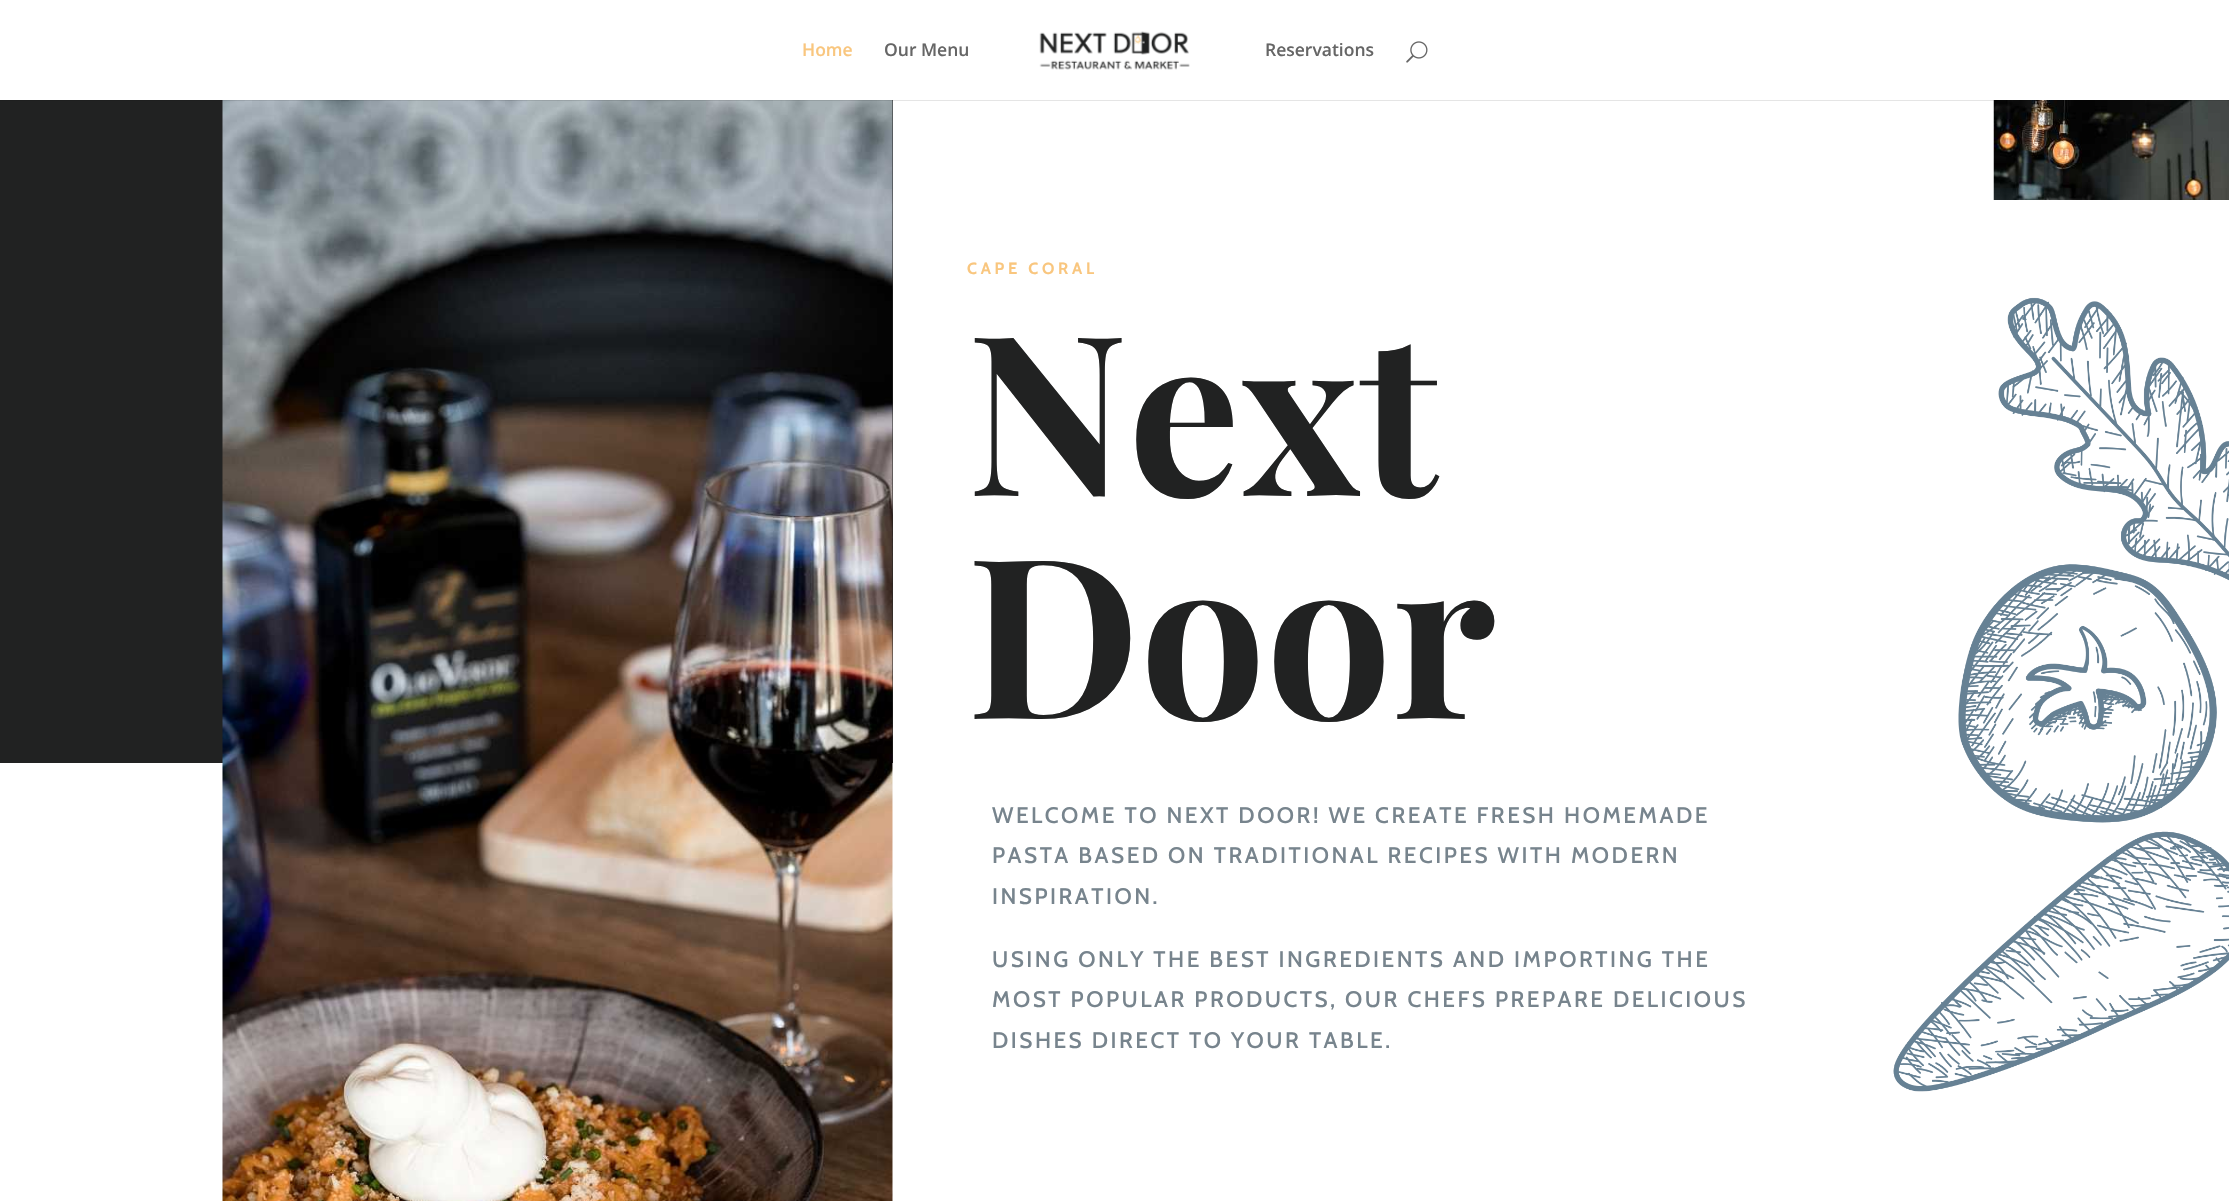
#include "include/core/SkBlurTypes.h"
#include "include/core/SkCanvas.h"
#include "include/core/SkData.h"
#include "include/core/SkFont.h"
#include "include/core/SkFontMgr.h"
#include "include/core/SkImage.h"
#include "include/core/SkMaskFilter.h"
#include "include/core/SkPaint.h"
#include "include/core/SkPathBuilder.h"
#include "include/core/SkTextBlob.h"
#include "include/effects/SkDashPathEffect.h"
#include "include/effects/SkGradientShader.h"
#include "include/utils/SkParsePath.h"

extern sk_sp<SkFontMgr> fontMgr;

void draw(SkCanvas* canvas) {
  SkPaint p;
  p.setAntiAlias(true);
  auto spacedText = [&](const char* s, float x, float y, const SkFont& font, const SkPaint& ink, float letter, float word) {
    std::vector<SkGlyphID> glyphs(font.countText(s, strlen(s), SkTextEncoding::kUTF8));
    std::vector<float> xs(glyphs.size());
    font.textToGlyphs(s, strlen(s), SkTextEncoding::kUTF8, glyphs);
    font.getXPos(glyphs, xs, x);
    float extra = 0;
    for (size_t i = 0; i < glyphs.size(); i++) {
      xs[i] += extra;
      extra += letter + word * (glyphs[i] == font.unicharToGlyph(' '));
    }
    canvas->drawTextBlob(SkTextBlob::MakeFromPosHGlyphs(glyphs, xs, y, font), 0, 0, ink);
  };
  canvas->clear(SK_ColorWHITE);
  p.setColor(SkColorSetRGB(33, 34, 34));
  canvas->drawRect(SkRect::MakeLTRB(0, 100, 893, 763), p);
  canvas->drawImageRect(SkImages::DeferredFromEncodedData(SkData::MakeFromFileName("images/3.png")), SkRect::MakeLTRB(222, 100, 893, 1201), SkSamplingOptions());
  canvas->drawImageRect(SkImages::DeferredFromEncodedData(SkData::MakeFromFileName("images/4.png")), SkRect::MakeLTRB(1993, 100, 2229, 200), SkSamplingOptions());
  p.setColor(SkColorSetARGB(26, 0, 0, 0));
  canvas->drawRect(SkRect::MakeLTRB(0, 100, 2229, 101), p);
  canvas->drawImageRect(SkImages::DeferredFromEncodedData(SkData::MakeFromFileName("images/1.png")), SkRect::MakeLTRB(1039, 31, 1190, 70), SkSamplingOptions());
  canvas->drawImageRect(SkImages::DeferredFromEncodedData(SkData::MakeFromFileName("images/2.png")), SkRect::MakeLTRB(1406, 41, 1428, 63), SkSamplingOptions());
  canvas->drawImageRect(SkImages::DeferredFromEncodedData(SkData::MakeFromFileName("images/5.png")), SkRect::MakeLTRB(1893, 297, 2229, 1092), SkSamplingOptions());
  SkFont font1(fontMgr->matchFamilyStyle("Open Sans", SkFontStyle(600, SkFontStyle::kNormal_Width, SkFontStyle::kUpright_Slant)), 17.5f);
  font1.setSubpixel(true);
  p.setColor(SkColorSetRGB(249, 198, 126));
  canvas->drawString("Home", 802, 56, font1, p);
  p.setColor(SkColorSetRGB(102, 102, 102));
  canvas->drawString("Our Menu", 884, 56, font1, p);
  canvas->drawString("Reservations", 1265, 56, font1, p);
  SkFont font2(fontMgr->matchFamilyStyle("Cabin", SkFontStyle::Bold()), 16.25f);
  font2.setSubpixel(true);
  p.setColor(SkColorSetRGB(249, 198, 126));
  spacedText("CAPE CORAL", 967, 274, font2, p, 3.75f, 0);
  SkFont font3(fontMgr->matchFamilyStyle("Playfair Display", SkFontStyle::Bold()), 223);
  font3.setSubpixel(true);
  p.setColor(SkColorSetRGB(33, 34, 34));
  canvas->drawString("Next", 967, 496, font3, p);
  canvas->drawString("Door", 967, 719, font3, p);
  SkFont font4(fontMgr->matchFamilyStyle("Cabin", SkFontStyle(500, SkFontStyle::kNormal_Width, SkFontStyle::kUpright_Slant)), 22.5f);
  font4.setSubpixel(true);
  p.setColor(SkColorSetRGB(119, 132, 141));
  spacedText("WELCOME TO NEXT DOOR! WE CREATE FRESH HOMEMADE", 992, 823, font4, p, 2.5f, 0);
  spacedText("PASTA BASED ON TRADITIONAL RECIPES WITH MODERN", 992, 863, font4, p, 2.5f, 0);
  spacedText("INSPIRATION.", 992, 904, font4, p, 2.5f, 0);
  spacedText("USING ONLY THE BEST INGREDIENTS AND IMPORTING THE", 992, 967, font4, p, 2.5f, 0);
  spacedText("MOST POPULAR PRODUCTS, OUR CHEFS PREPARE DELICIOUS", 992, 1007, font4, p, 2.5f, 0);
  spacedText("DISHES DIRECT TO YOUR TABLE.", 992, 1048, font4, p, 2.5f, 0);
}
